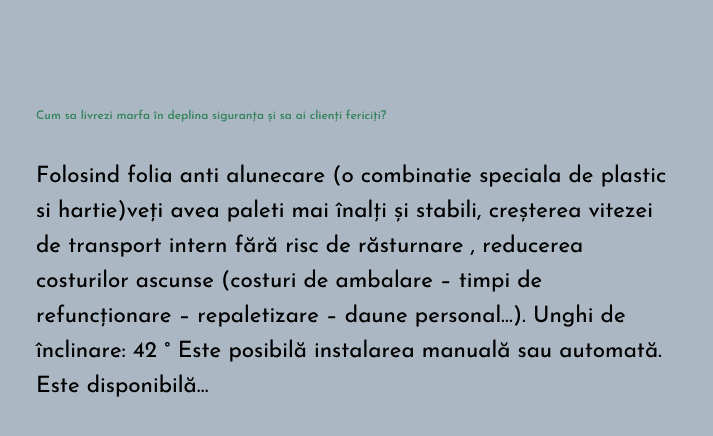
#include "include/core/SkBlurTypes.h"
#include "include/core/SkCanvas.h"
#include "include/core/SkData.h"
#include "include/core/SkFont.h"
#include "include/core/SkFontMgr.h"
#include "include/core/SkImage.h"
#include "include/core/SkMaskFilter.h"
#include "include/core/SkPaint.h"
#include "include/core/SkPathBuilder.h"
#include "include/core/SkTextBlob.h"
#include "include/effects/SkDashPathEffect.h"
#include "include/effects/SkGradientShader.h"
#include "include/utils/SkParsePath.h"

extern sk_sp<SkFontMgr> fontMgr;

void draw(SkCanvas* canvas) {
  SkPaint p;
  p.setAntiAlias(true);
  canvas->clear(SkColorSetRGB(171, 184, 195));
  SkFont font1(fontMgr->matchFamilyStyle("Josefin Sans", SkFontStyle(500, SkFontStyle::kNormal_Width, SkFontStyle::kUpright_Slant)), 12);
  font1.setSubpixel(true);
  p.setColor(SkColorSetRGB(53, 132, 93));
  canvas->drawString("Cum sa livrezi marfa în deplina siguranța și sa ai clienți fericiți?", 36, 119, font1, p);
  SkFont font2(fontMgr->matchFamilyStyle("Josefin Sans", SkFontStyle::Normal()), 22.5f);
  font2.setSubpixel(true);
  p.setColor(SK_ColorBLACK);
  canvas->drawString("Folosind folia anti alunecare (o combinatie speciala de plastic", 36, 182, font2, p);
  canvas->drawString("si hartie)veți avea paleti mai înalți și stabili, creșterea vitezei", 36, 217, font2, p);
  canvas->drawString("de transport intern fără risc de răsturnare , reducerea", 36, 252, font2, p);
  canvas->drawString("costurilor ascunse (costuri de ambalare – timpi de", 36, 287, font2, p);
  canvas->drawString("refuncționare – repaletizare – daune personal…). Unghi de", 36, 322, font2, p);
  canvas->drawString("înclinare: 42 ° Este posibilă instalarea manuală sau automată.", 36, 357, font2, p);
  canvas->drawString("Este disponibilă…", 36, 392, font2, p);
}
